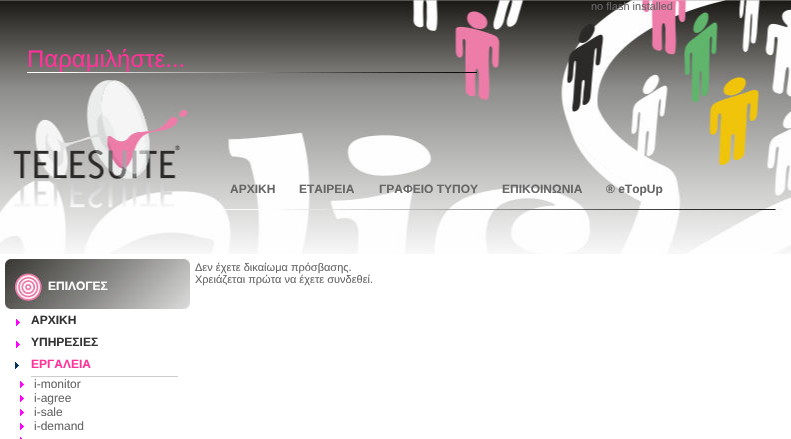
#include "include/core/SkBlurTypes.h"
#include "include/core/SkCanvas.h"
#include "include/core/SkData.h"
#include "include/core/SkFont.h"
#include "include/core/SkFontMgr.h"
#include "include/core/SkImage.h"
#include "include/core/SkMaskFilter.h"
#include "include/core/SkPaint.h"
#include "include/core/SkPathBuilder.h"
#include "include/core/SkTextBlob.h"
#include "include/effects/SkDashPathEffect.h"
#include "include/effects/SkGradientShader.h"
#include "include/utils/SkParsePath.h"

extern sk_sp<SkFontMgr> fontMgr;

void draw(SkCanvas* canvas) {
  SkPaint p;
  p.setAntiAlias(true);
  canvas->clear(SK_ColorWHITE);
  canvas->drawImageRect(SkImages::DeferredFromEncodedData(SkData::MakeFromFileName("images/1.png")), SkRect::MakeLTRB(0, 0, 791, 254), SkSamplingOptions());
  canvas->drawImageRect(SkImages::DeferredFromEncodedData(SkData::MakeFromFileName("images/2.png")), SkRect::MakeLTRB(27, 72, 477, 73), SkSamplingOptions());
  canvas->drawImageRect(SkImages::DeferredFromEncodedData(SkData::MakeFromFileName("images/3.png")), SkRect::MakeLTRB(5, 259, 190, 309), SkSamplingOptions());
  canvas->drawImageRect(SkImages::DeferredFromEncodedData(SkData::MakeFromFileName("images/4.png")), SkRect::MakeLTRB(16, 319, 20, 326), SkSamplingOptions());
  canvas->drawImageRect(SkImages::DeferredFromEncodedData(SkData::MakeFromFileName("images/4.png")), SkRect::MakeLTRB(16, 341, 20, 348), SkSamplingOptions());
  canvas->drawImageRect(SkImages::DeferredFromEncodedData(SkData::MakeFromFileName("images/5.png")), SkRect::MakeLTRB(15, 362, 178, 377), SkSamplingOptions());
  canvas->drawImageRect(SkImages::DeferredFromEncodedData(SkData::MakeFromFileName("images/6.png")), SkRect::MakeLTRB(20, 381, 25, 388), SkSamplingOptions());
  canvas->drawImageRect(SkImages::DeferredFromEncodedData(SkData::MakeFromFileName("images/4.png")), SkRect::MakeLTRB(20, 395, 24, 402), SkSamplingOptions());
  canvas->drawImageRect(SkImages::DeferredFromEncodedData(SkData::MakeFromFileName("images/6.png")), SkRect::MakeLTRB(20, 409, 25, 416), SkSamplingOptions());
  canvas->drawImageRect(SkImages::DeferredFromEncodedData(SkData::MakeFromFileName("images/4.png")), SkRect::MakeLTRB(20, 423, 24, 430), SkSamplingOptions());
  canvas->drawImageRect(SkImages::DeferredFromEncodedData(SkData::MakeFromFileName("images/7.png")), SkRect::MakeLTRB(20, 437, 22, 439), SkSamplingOptions());
  SkFont font1(fontMgr->matchFamilyStyle("Liberation Sans", SkFontStyle::Normal()), 11);
  font1.setSubpixel(true);
  p.setColor(SkColorSetRGB(102, 102, 102));
  canvas->drawString("no flash installed", 591, 10, font1, p);
  SkFont font2(fontMgr->matchFamilyStyle("Liberation Sans", SkFontStyle::Normal()), 24);
  font2.setSubpixel(true);
  p.setColor(SkColorSetRGB(255, 51, 153));
  canvas->drawString("Παραμιλήστε...", 27, 67, font2, p);
  SkFont font3(fontMgr->matchFamilyStyle("Liberation Sans", SkFontStyle::Bold()), 12);
  font3.setSubpixel(true);
  p.setColor(SkColorSetRGB(102, 102, 102));
  canvas->drawString("ΑΡΧΙΚΗ", 230, 193, font3, p);
  canvas->drawString("ΕΤΑΙΡΕΙΑ", 299, 193, font3, p);
  canvas->drawString("ΓΡΑΦΕΙΟ ΤΥΠΟΥ", 379, 193, font3, p);
  canvas->drawString("ΕΠΙΚΟΙΝΩΝΙΑ", 502, 193, font3, p);
  canvas->drawString("® eTopUp", 606, 193, font3, p);
  canvas->drawString("Δεν έχετε δικαίωμα πρόσβασης.", 195, 271, font1, p);
  canvas->drawString("Χρειάζεται πρώτα να έχετε συνδεθεί.", 195, 283, font1, p);
  p.setColor(SK_ColorWHITE);
  canvas->drawString("ΕΠΙΛΟΓΕΣ", 48, 290, font3, p);
  p.setColor(SkColorSetRGB(51, 51, 51));
  canvas->drawString("ΑΡΧΙΚΗ", 31, 324, font3, p);
  canvas->drawString("ΥΠΗΡΕΣΙΕΣ", 31, 346, font3, p);
  p.setColor(SkColorSetRGB(255, 51, 153));
  canvas->drawString("ΕΡΓΑΛΕΙΑ", 31, 368, font3, p);
  SkFont font4(fontMgr->matchFamilyStyle("Liberation Sans", SkFontStyle::Normal()), 12);
  font4.setSubpixel(true);
  p.setColor(SkColorSetRGB(102, 102, 102));
  canvas->drawString("i-monitor", 34, 388, font4, p);
  canvas->drawString("i-agree", 34, 402, font4, p);
  canvas->drawString("i-sale", 34, 416, font4, p);
  canvas->drawString("i-demand", 34, 430, font4, p);
}
